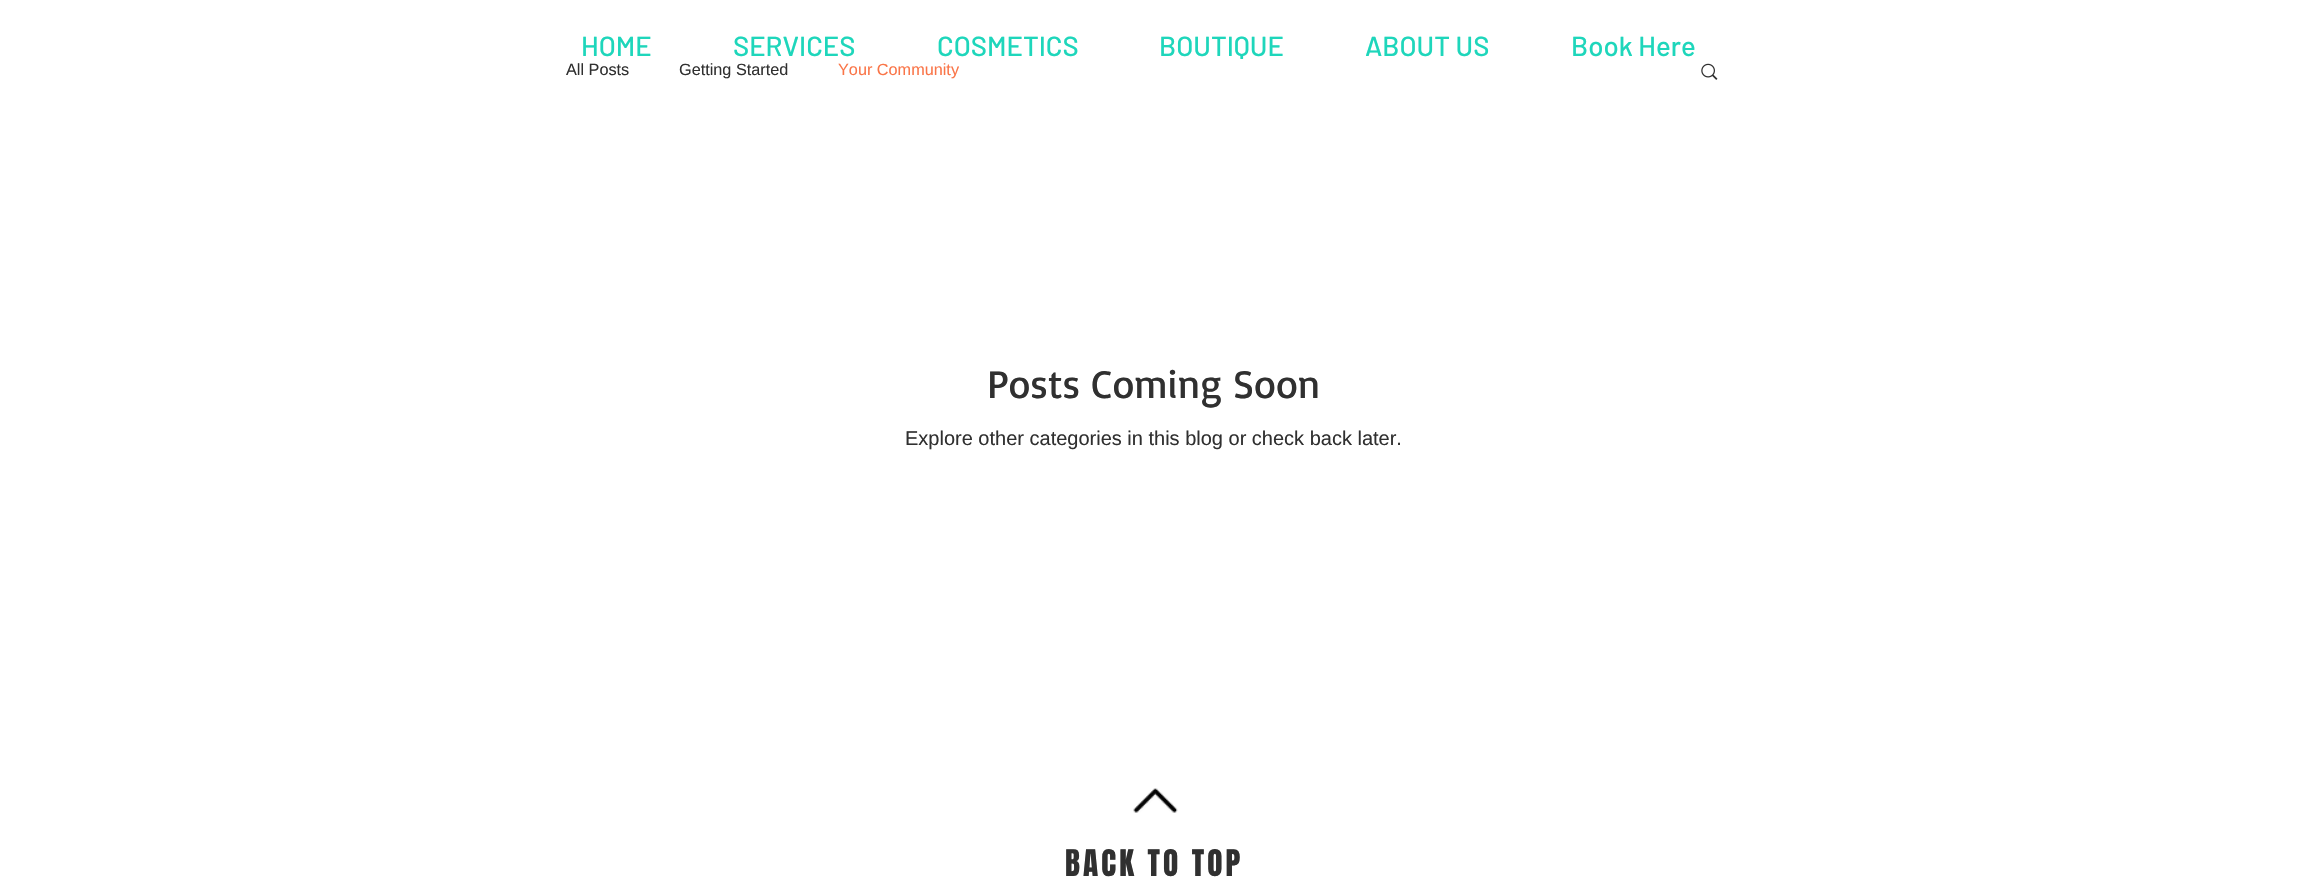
#include "include/core/SkBlurTypes.h"
#include "include/core/SkCanvas.h"
#include "include/core/SkData.h"
#include "include/core/SkFont.h"
#include "include/core/SkFontMgr.h"
#include "include/core/SkImage.h"
#include "include/core/SkMaskFilter.h"
#include "include/core/SkPaint.h"
#include "include/core/SkPathBuilder.h"
#include "include/core/SkTextBlob.h"
#include "include/effects/SkDashPathEffect.h"
#include "include/effects/SkGradientShader.h"
#include "include/utils/SkParsePath.h"

extern sk_sp<SkFontMgr> fontMgr;

void draw(SkCanvas* canvas) {
  SkPaint p;
  p.setAntiAlias(true);
  auto spacedText = [&](const char* s, float x, float y, const SkFont& font, const SkPaint& ink, float letter, float word) {
    std::vector<SkGlyphID> glyphs(font.countText(s, strlen(s), SkTextEncoding::kUTF8));
    std::vector<float> xs(glyphs.size());
    font.textToGlyphs(s, strlen(s), SkTextEncoding::kUTF8, glyphs);
    font.getXPos(glyphs, xs, x);
    float extra = 0;
    for (size_t i = 0; i < glyphs.size(); i++) {
      xs[i] += extra;
      extra += letter + word * (glyphs[i] == font.unicharToGlyph(' '));
    }
    canvas->drawTextBlob(SkTextBlob::MakeFromPosHGlyphs(glyphs, xs, y, font), 0, 0, ink);
  };
  canvas->clear(SK_ColorWHITE);
  canvas->drawImageRect(SkImages::DeferredFromEncodedData(SkData::MakeFromFileName("images/1.png")), SkRect::MakeLTRB(1701, 63, 1718, 80), SkSamplingOptions());
  canvas->drawImageRect(SkImages::DeferredFromEncodedData(SkData::MakeFromFileName("images/2.png")), SkRect::MakeLTRB(1133, 788, 1178, 813), SkSamplingOptions());
  SkFont font1(fontMgr->matchFamilyStyle("Barlow", SkFontStyle(500, SkFontStyle::kNormal_Width, SkFontStyle::kUpright_Slant)), 27.5f);
  font1.setSubpixel(true);
  p.setColor(SkColorSetRGB(30, 214, 187));
  canvas->drawString("HOME", 581, 56, font1, p);
  canvas->drawString("SERVICES", 733, 56, font1, p);
  canvas->drawString("COSMETICS", 937, 56, font1, p);
  canvas->drawString("BOUTIQUE", 1159, 56, font1, p);
  canvas->drawString("ABOUT US", 1365, 56, font1, p);
  canvas->drawString("Book Here", 1571, 56, font1, p);
  SkFont font2(fontMgr->matchFamilyStyle("Liberation Sans", SkFontStyle::Normal()), 16.25f);
  font2.setSubpixel(true);
  p.setColor(SkColorSetRGB(48, 48, 48));
  canvas->drawString("All Posts", 566, 75, font2, p);
  canvas->drawString("Getting Started", 679, 75, font2, p);
  p.setColor(SkColorSetRGB(250, 117, 72));
  canvas->drawString("Your Community", 838, 75, font2, p);
  SkFont font3(fontMgr->matchFamilyStyle("Basic", SkFontStyle::Normal()), 40);
  font3.setSubpixel(true);
  p.setColor(SkColorSetRGB(48, 48, 48));
  canvas->drawString("Posts Coming Soon", 987, 398, font3, p);
  SkFont font4(fontMgr->matchFamilyStyle("Liberation Sans", SkFontStyle::Normal()), 20);
  font4.setSubpixel(true);
  canvas->drawString("Explore other categories in this blog or check back later.", 905, 445, font4, p);
  SkFont font5(fontMgr->matchFamilyStyle("Anton", SkFontStyle::Normal()), 31.25f);
  font5.setSubpixel(true);
  spacedText("BACK TO TOP", 1065, 876, font5, p, 3.1f, 0);
}
